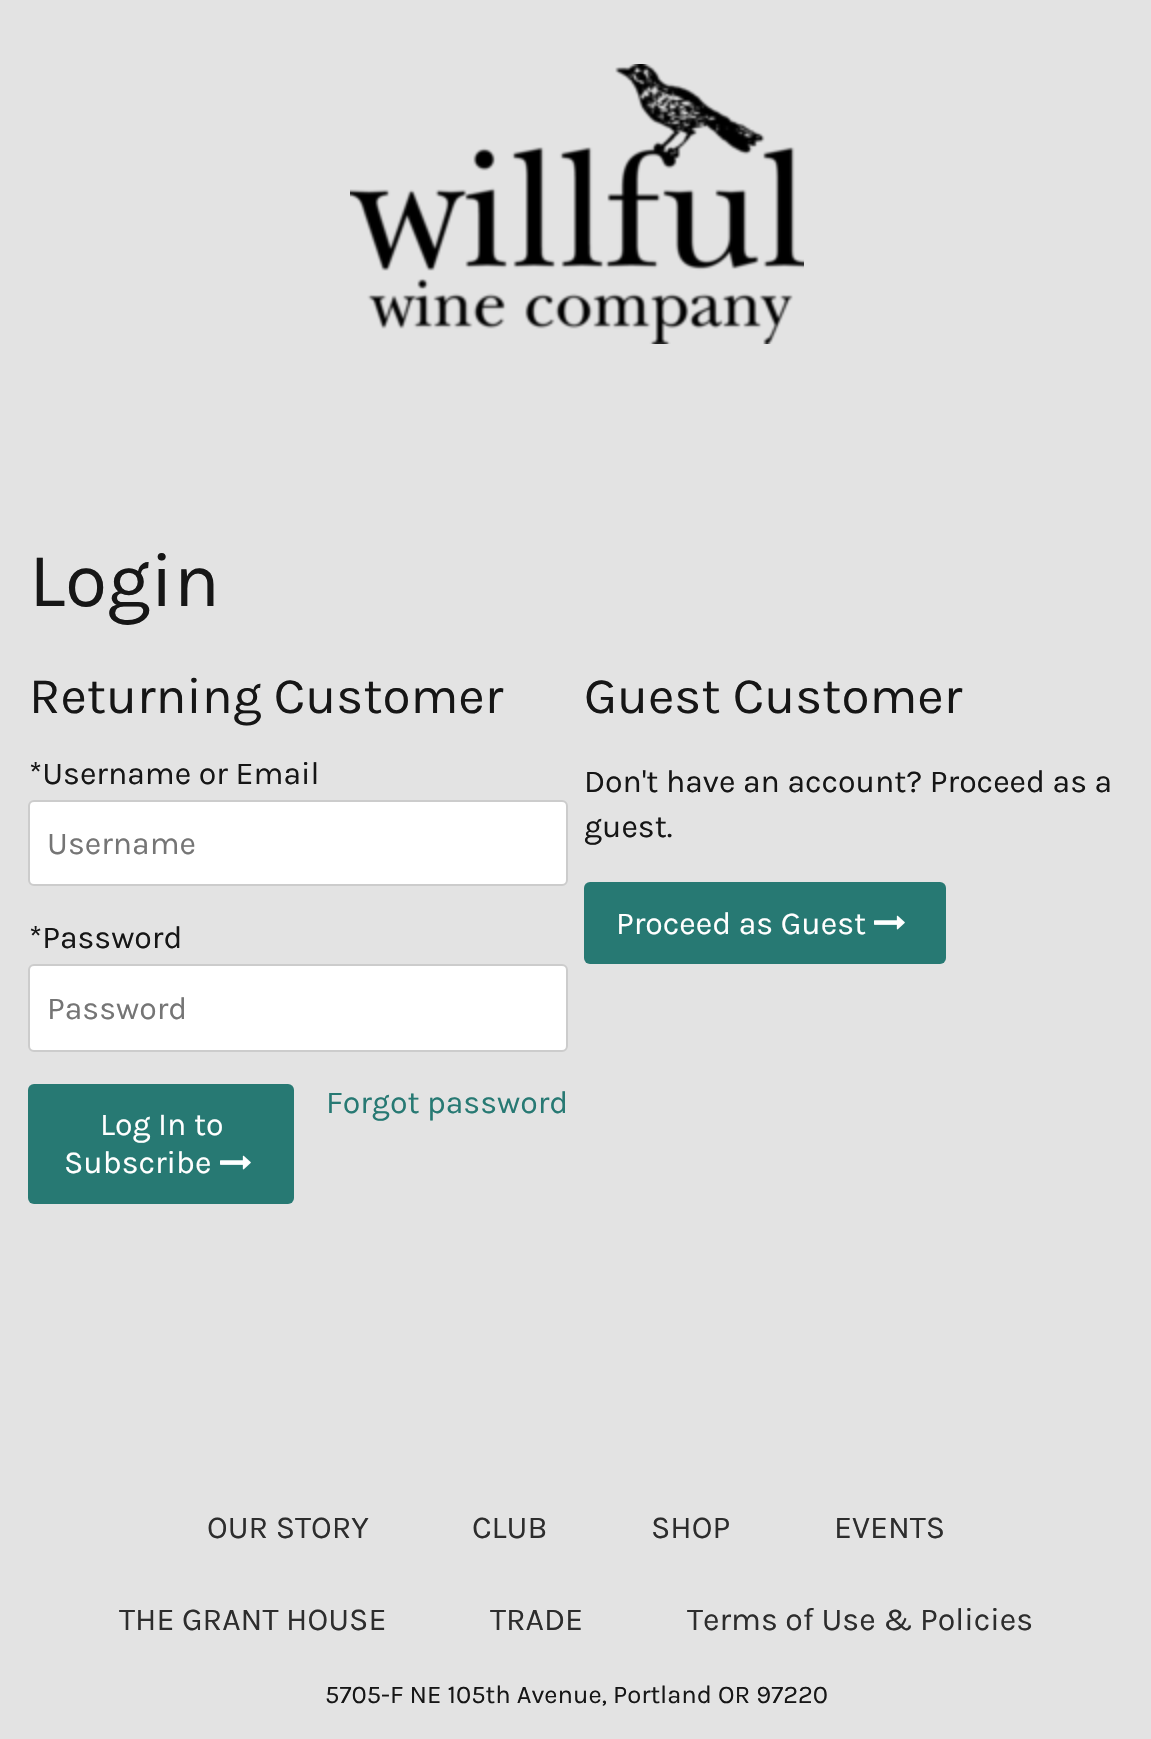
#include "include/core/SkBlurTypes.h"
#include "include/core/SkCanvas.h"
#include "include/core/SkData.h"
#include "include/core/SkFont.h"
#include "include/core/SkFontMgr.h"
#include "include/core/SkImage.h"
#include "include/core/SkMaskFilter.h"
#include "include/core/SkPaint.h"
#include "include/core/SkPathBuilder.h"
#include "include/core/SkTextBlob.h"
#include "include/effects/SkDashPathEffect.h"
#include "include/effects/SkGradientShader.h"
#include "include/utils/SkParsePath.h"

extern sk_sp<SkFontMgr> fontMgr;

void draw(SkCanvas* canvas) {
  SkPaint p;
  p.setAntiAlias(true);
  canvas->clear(SkColorSetRGB(227, 227, 227));
  canvas->drawImageRect(SkImages::DeferredFromEncodedData(SkData::MakeFromFileName("images/1.png")), SkRect::MakeLTRB(350, 64, 804, 344), SkSamplingOptions());
  p.setColor(SK_ColorWHITE);
  canvas->drawRoundRect(SkRect::MakeLTRB(29, 801, 567, 885), 5, 5, p);
  p.setStyle(SkPaint::kStroke_Style);
  p.setStrokeWidth(2);
  p.setColor(SkColorSetRGB(204, 204, 204));
  canvas->drawRoundRect(SkRect::MakeLTRB(29, 801, 567, 885), 5, 5, p);
  p.setStyle(SkPaint::kFill_Style);
  p.setColor(SK_ColorWHITE);
  canvas->drawRoundRect(SkRect::MakeLTRB(29, 965, 567, 1051), 5, 5, p);
  p.setStyle(SkPaint::kStroke_Style);
  p.setColor(SkColorSetRGB(204, 204, 204));
  canvas->drawRoundRect(SkRect::MakeLTRB(29, 965, 567, 1051), 5, 5, p);
  p.setStyle(SkPaint::kFill_Style);
  p.setColor(SkColorSetRGB(39, 121, 115));
  canvas->drawRoundRect(SkRect::MakeLTRB(28, 1084, 294, 1204), 6, 6, p);
  canvas->drawImageRect(SkImages::DeferredFromEncodedData(SkData::MakeFromFileName("images/2.png")), SkRect::MakeLTRB(220, 1155, 251, 1170), SkSamplingOptions());
  canvas->drawRoundRect(SkRect::MakeLTRB(584, 882, 946, 964), 6, 6, p);
  canvas->drawImageRect(SkImages::DeferredFromEncodedData(SkData::MakeFromFileName("images/2.png")), SkRect::MakeLTRB(874, 915, 905, 930), SkSamplingOptions());
  SkFont font1(fontMgr->matchFamilyStyle("Karla", SkFontStyle::Normal()), 77);
  font1.setSubpixel(true);
  p.setColor(SkColorSetRGB(22, 22, 22));
  canvas->drawString("Login", 29, 606, font1, p);
  SkFont font2(fontMgr->matchFamilyStyle("Karla", SkFontStyle::Normal()), 51.25f);
  font2.setSubpixel(true);
  canvas->drawString("Returning Customer", 29, 713, font2, p);
  SkFont font3(fontMgr->matchFamilyStyle("Karla", SkFontStyle::Normal()), 32);
  font3.setSubpixel(true);
  canvas->drawString("*Username or Email", 29, 784, font3, p);
  p.setColor(SkColorSetRGB(117, 117, 117));
  canvas->drawString("Username", 47, 854, font3, p);
  p.setColor(SkColorSetRGB(22, 22, 22));
  canvas->drawString("*Password", 29, 948, font3, p);
  p.setColor(SkColorSetRGB(117, 117, 117));
  canvas->drawString("Password", 47, 1019, font3, p);
  p.setColor(SkColorSetRGB(39, 121, 115));
  canvas->drawString("Forgot password", 326, 1113, font3, p);
  p.setColor(SK_ColorWHITE);
  canvas->drawString("Log In to", 100, 1135, font3, p);
  canvas->drawString("Subscribe", 64, 1173, font3, p);
  p.setColor(SkColorSetRGB(22, 22, 22));
  canvas->drawString("Guest Customer", 584, 713, font2, p);
  canvas->drawString("Don't have an account? Proceed as a", 584, 792, font3, p);
  canvas->drawString("guest.", 584, 837, font3, p);
  p.setColor(SK_ColorWHITE);
  canvas->drawString("Proceed as Guest", 616, 934, font3, p);
  p.setColor(SkColorSetRGB(45, 45, 45));
  canvas->drawString("OUR STORY", 207, 1538, font3, p);
  canvas->drawString("CLUB", 472, 1538, font3, p);
  canvas->drawString("SHOP", 651, 1538, font3, p);
  canvas->drawString("EVENTS", 834, 1538, font3, p);
  canvas->drawString("THE GRANT HOUSE", 119, 1630, font3, p);
  canvas->drawString("TRADE", 490, 1630, font3, p);
  canvas->drawString("Terms of Use & Policies", 687, 1630, font3, p);
  SkFont font4(fontMgr->matchFamilyStyle("Karla", SkFontStyle::Normal()), 25.6f);
  font4.setSubpixel(true);
  p.setColor(SkColorSetRGB(22, 22, 22));
  canvas->drawString("5705-F NE 105th Avenue, Portland OR 97220", 325, 1703, font4, p);
}
